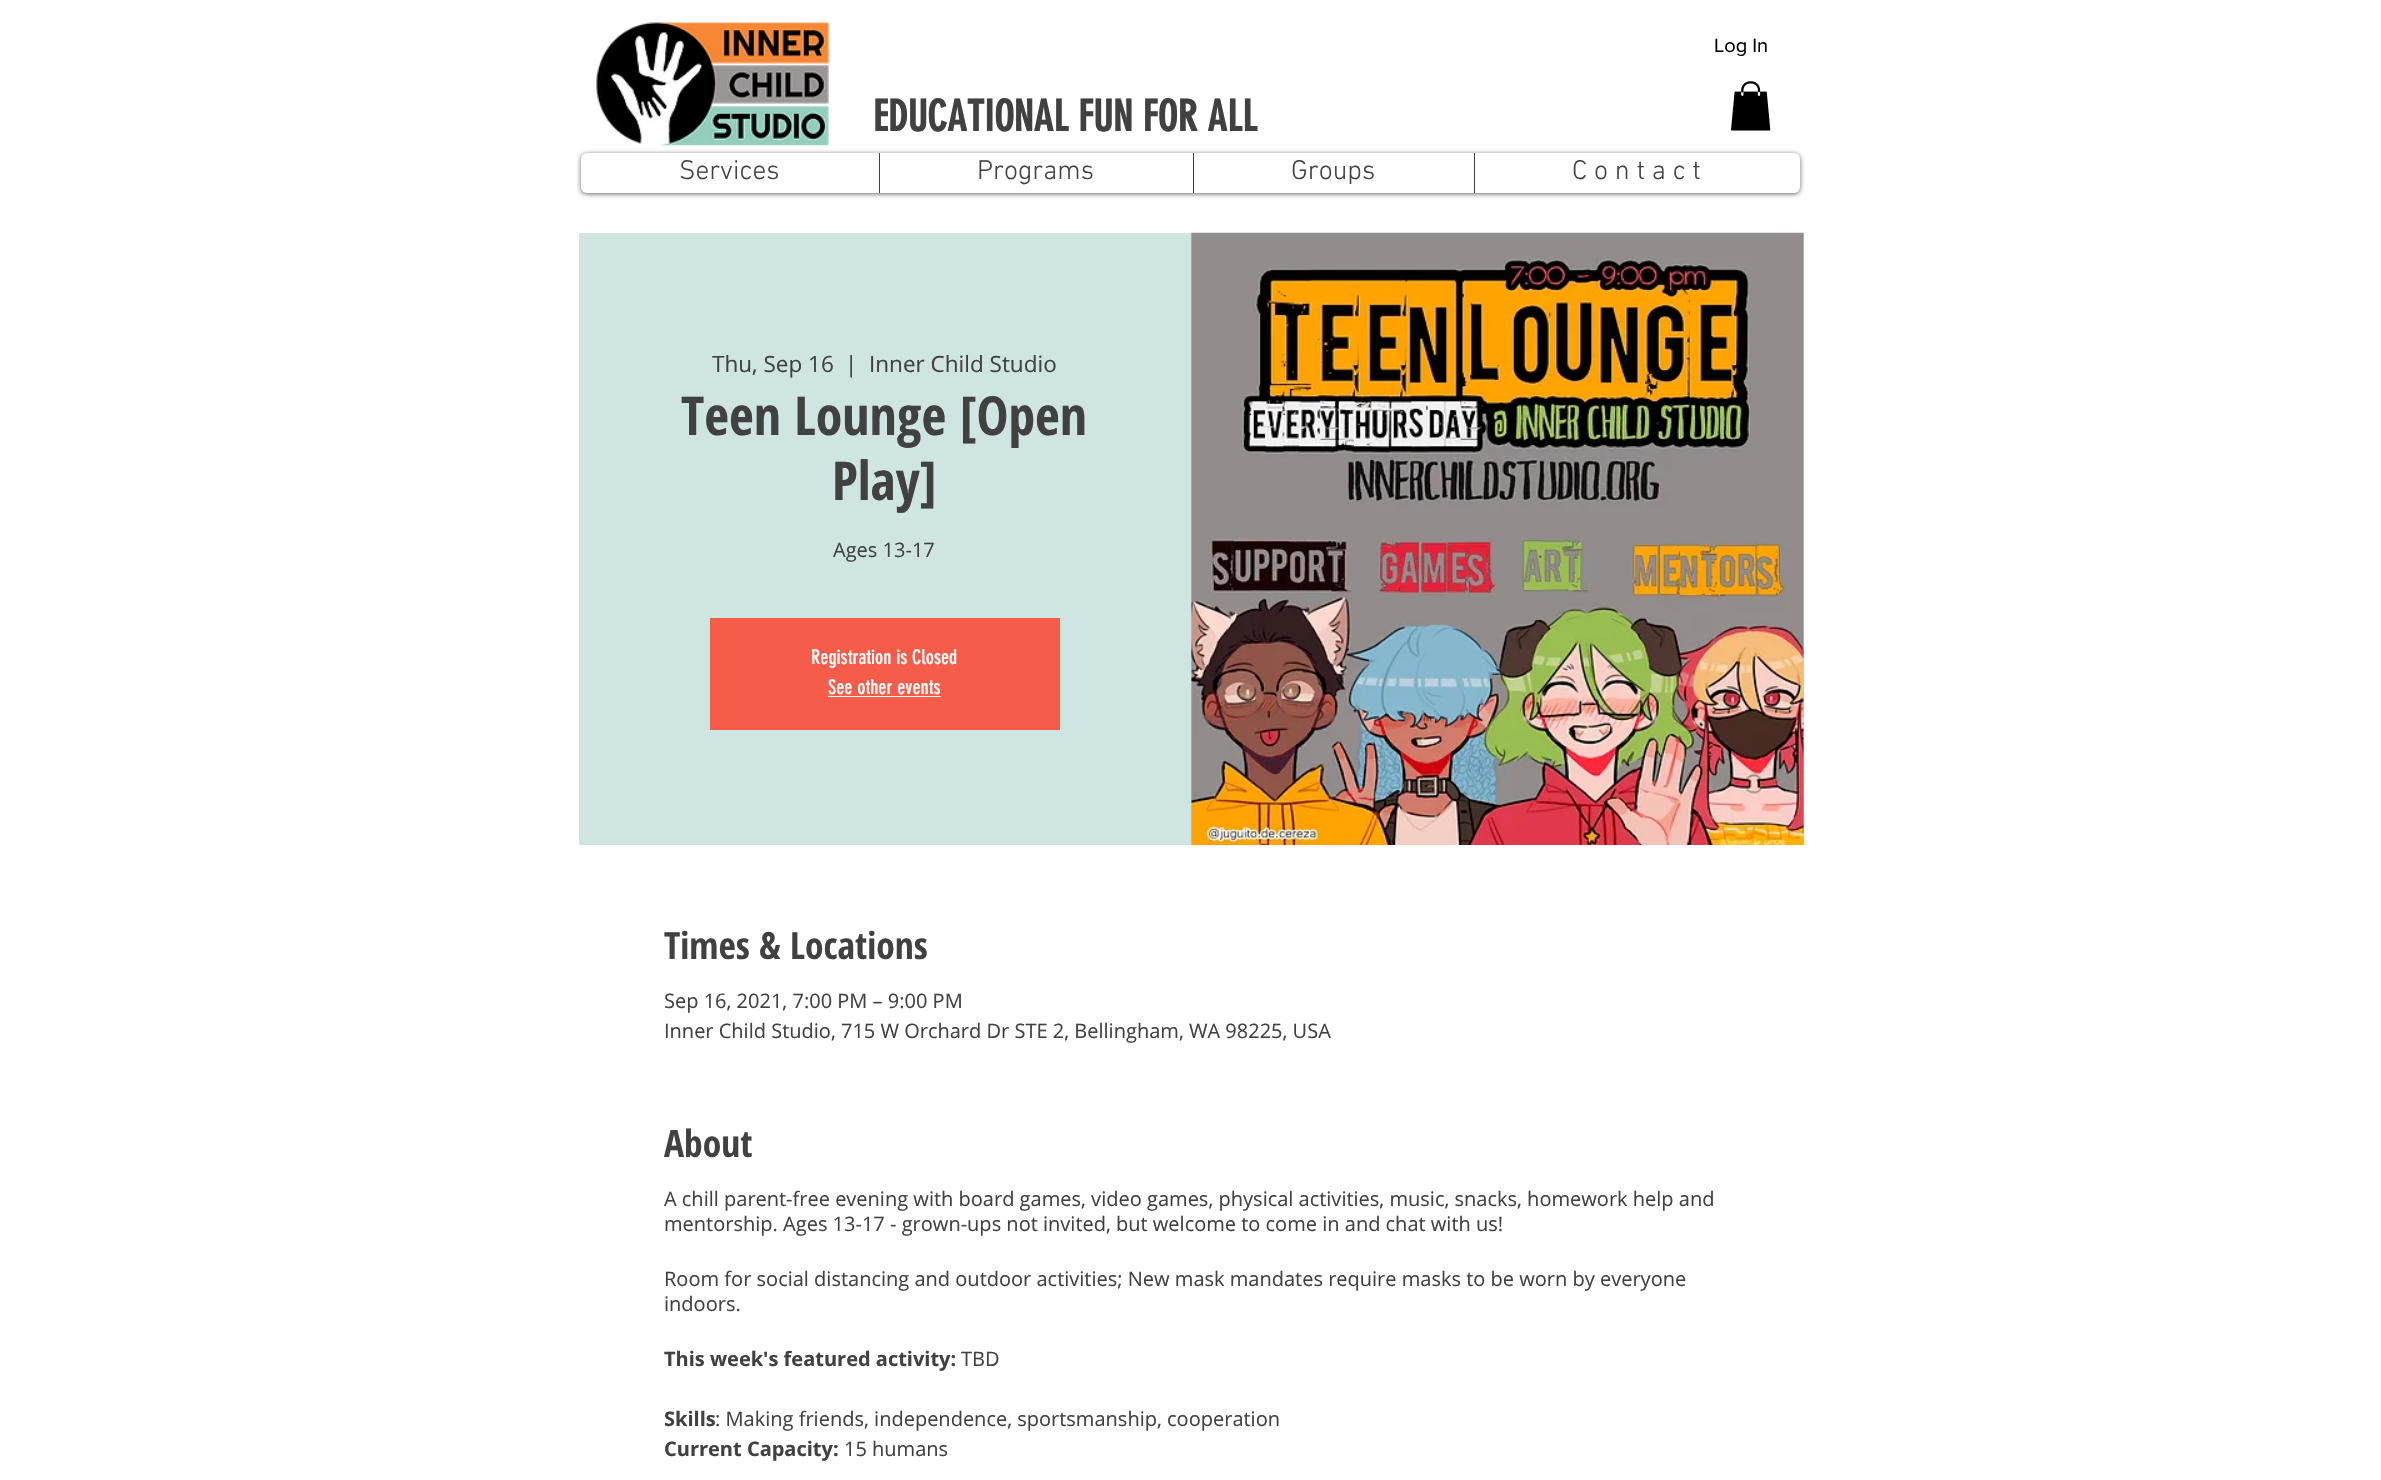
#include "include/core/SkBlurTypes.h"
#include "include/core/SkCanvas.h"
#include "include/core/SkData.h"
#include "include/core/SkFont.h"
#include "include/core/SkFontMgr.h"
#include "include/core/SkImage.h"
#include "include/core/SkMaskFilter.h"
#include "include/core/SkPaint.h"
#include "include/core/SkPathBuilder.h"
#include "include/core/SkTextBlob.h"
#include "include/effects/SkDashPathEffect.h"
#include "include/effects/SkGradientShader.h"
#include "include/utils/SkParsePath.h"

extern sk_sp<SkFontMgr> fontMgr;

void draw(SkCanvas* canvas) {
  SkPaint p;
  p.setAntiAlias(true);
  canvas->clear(SK_ColorWHITE);
  canvas->drawImageRect(SkImages::DeferredFromEncodedData(SkData::MakeFromFileName("images/1.png")), SkRect::MakeLTRB(596, 22, 829, 147), SkSamplingOptions());
  canvas->drawImageRect(SkImages::DeferredFromEncodedData(SkData::MakeFromFileName("images/2.png")), SkRect::MakeLTRB(1731, 81, 1771, 131), SkSamplingOptions());
  p.setColor(SkColorSetARGB(153, 0, 0, 0));
  p.setMaskFilter(SkMaskFilter::MakeBlur(kNormal_SkBlurStyle, 2.5f));
  canvas->drawRoundRect(SkRect::MakeLTRB(581, 154, 1800, 194), 6, 6, p);
  p.setMaskFilter(nullptr);
  p.setColor(SK_ColorWHITE);
  canvas->drawRoundRect(SkRect::MakeLTRB(581, 153, 1800, 193), 6, 6, p);
  p.setColor(SkColorSetRGB(65, 65, 65));
  canvas->drawRect(SkRect::MakeLTRB(879, 153, 880, 193), p);
  canvas->drawRect(SkRect::MakeLTRB(1193, 153, 1194, 193), p);
  canvas->drawRect(SkRect::MakeLTRB(1474, 153, 1475, 193), p);
  p.setColor(SkColorSetRGB(207, 229, 225));
  canvas->drawRect(SkRect::MakeLTRB(579, 233, 1191, 845), p);
  p.setColor(SkColorSetRGB(245, 92, 74));
  canvas->drawRect(SkRect::MakeLTRB(710, 618, 1060, 730), p);
  p.setColor(SK_ColorWHITE);
  canvas->drawRect(SkRect::MakeLTRB(828, 696, 941, 697), p);
  p.setColor(SkColorSetRGB(142, 232, 214));
  canvas->drawRect(SkRect::MakeLTRB(1191, 233, 1804, 845), p);
  canvas->drawImageRect(SkImages::DeferredFromEncodedData(SkData::MakeFromFileName("images/3.png")), SkRect::MakeLTRB(1191, 232, 1804, 845), SkSamplingOptions());
  SkFont font1(fontMgr->matchFamilyStyle("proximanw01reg", SkFontStyle::Normal()), 20);
  font1.setSubpixel(true);
  p.setColor(SK_ColorBLACK);
  canvas->drawString("Log In", 1714, 52, font1, p);
  SkFont font2(fontMgr->matchFamilyStyle("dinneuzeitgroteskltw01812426", SkFontStyle::Bold()), 42.5f);
  font2.setSubpixel(true);
  p.setColor(SkColorSetRGB(65, 65, 65));
  canvas->drawString("EDUCATIONAL FUN FOR ALL", 873, 131, font2, p);
  SkFont font3(fontMgr->matchFamilyStyle("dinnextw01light", SkFontStyle(300, SkFontStyle::kNormal_Width, SkFontStyle::kUpright_Slant)), 27.5f);
  font3.setSubpixel(true);
  canvas->drawString("Services", 679, 179, font3, p);
  canvas->drawString("Programs", 977, 179, font3, p);
  canvas->drawString("Groups", 1291, 179, font3, p);
  canvas->drawString("C o n t a c t", 1572, 179, font3, p);
  SkFont font4(fontMgr->matchFamilyStyle("Open Sans", SkFontStyle::Normal()), 22.5f);
  font4.setSubpixel(true);
  canvas->drawString("Thu, Sep 16", 712, 372, font4, p);
  canvas->drawString("|", 845, 372, font4, p);
  canvas->drawString("Inner Child Studio", 869, 372, font4, p);
  SkFont font5(fontMgr->matchFamilyStyle("Open Sans Condensed", SkFontStyle::Bold()), 53.75f);
  font5.setSubpixel(true);
  canvas->drawString("Teen Lounge [Open", 681, 435, font5, p);
  canvas->drawString("Play]", 832, 500, font5, p);
  SkFont font6(fontMgr->matchFamilyStyle("Open Sans", SkFontStyle::Normal()), 20);
  font6.setSubpixel(true);
  canvas->drawString("Ages 13-17", 833, 557, font6, p);
  SkFont font7(fontMgr->matchFamilyStyle("dinneuzeitgroteskltw01812426", SkFontStyle::Normal()), 20);
  font7.setSubpixel(true);
  p.setColor(SK_ColorWHITE);
  canvas->drawString("Registration is Closed", 811, 664, font7, p);
  canvas->drawString("See other events", 828, 694, font7, p);
  SkFont font8(fontMgr->matchFamilyStyle("Open Sans Condensed", SkFontStyle::Bold()), 37.5f);
  font8.setSubpixel(true);
  p.setColor(SkColorSetRGB(65, 65, 65));
  canvas->drawString("Times & Locations", 664, 959, font8, p);
  canvas->drawString("Sep 16, 2021, 7:00 PM – 9:00 PM", 664, 1008, font6, p);
  canvas->drawString("Inner Child Studio, 715 W Orchard Dr STE 2, Bellingham, WA 98225, USA", 664, 1038, font6, p);
  canvas->drawString("About", 664, 1157, font8, p);
  canvas->drawString("A chill parent-free evening with board games, video games, physical activities, music, snacks, homework help and", 664, 1206, font6, p);
  canvas->drawString("mentorship. Ages 13-17 - grown-ups not invited, but welcome to come in and chat with us!", 664, 1231, font6, p);
  canvas->drawString("Room for social distancing and outdoor activities; New mask mandates require masks to be worn by everyone", 664, 1286, font6, p);
  canvas->drawString("indoors.", 664, 1311, font6, p);
  SkFont font9(fontMgr->matchFamilyStyle("Open Sans", SkFontStyle::Bold()), 20);
  font9.setSubpixel(true);
  canvas->drawString("This week's featured activity:", 664, 1366, font9, p);
  canvas->drawString("TBD", 961, 1366, font6, p);
  canvas->drawString("Skills", 664, 1426, font9, p);
  canvas->drawString(": Making friends, independence, sportsmanship, cooperation", 715, 1426, font6, p);
  canvas->drawString("Current Capacity:", 664, 1456, font9, p);
  canvas->drawString("15 humans", 844, 1456, font6, p);
}
